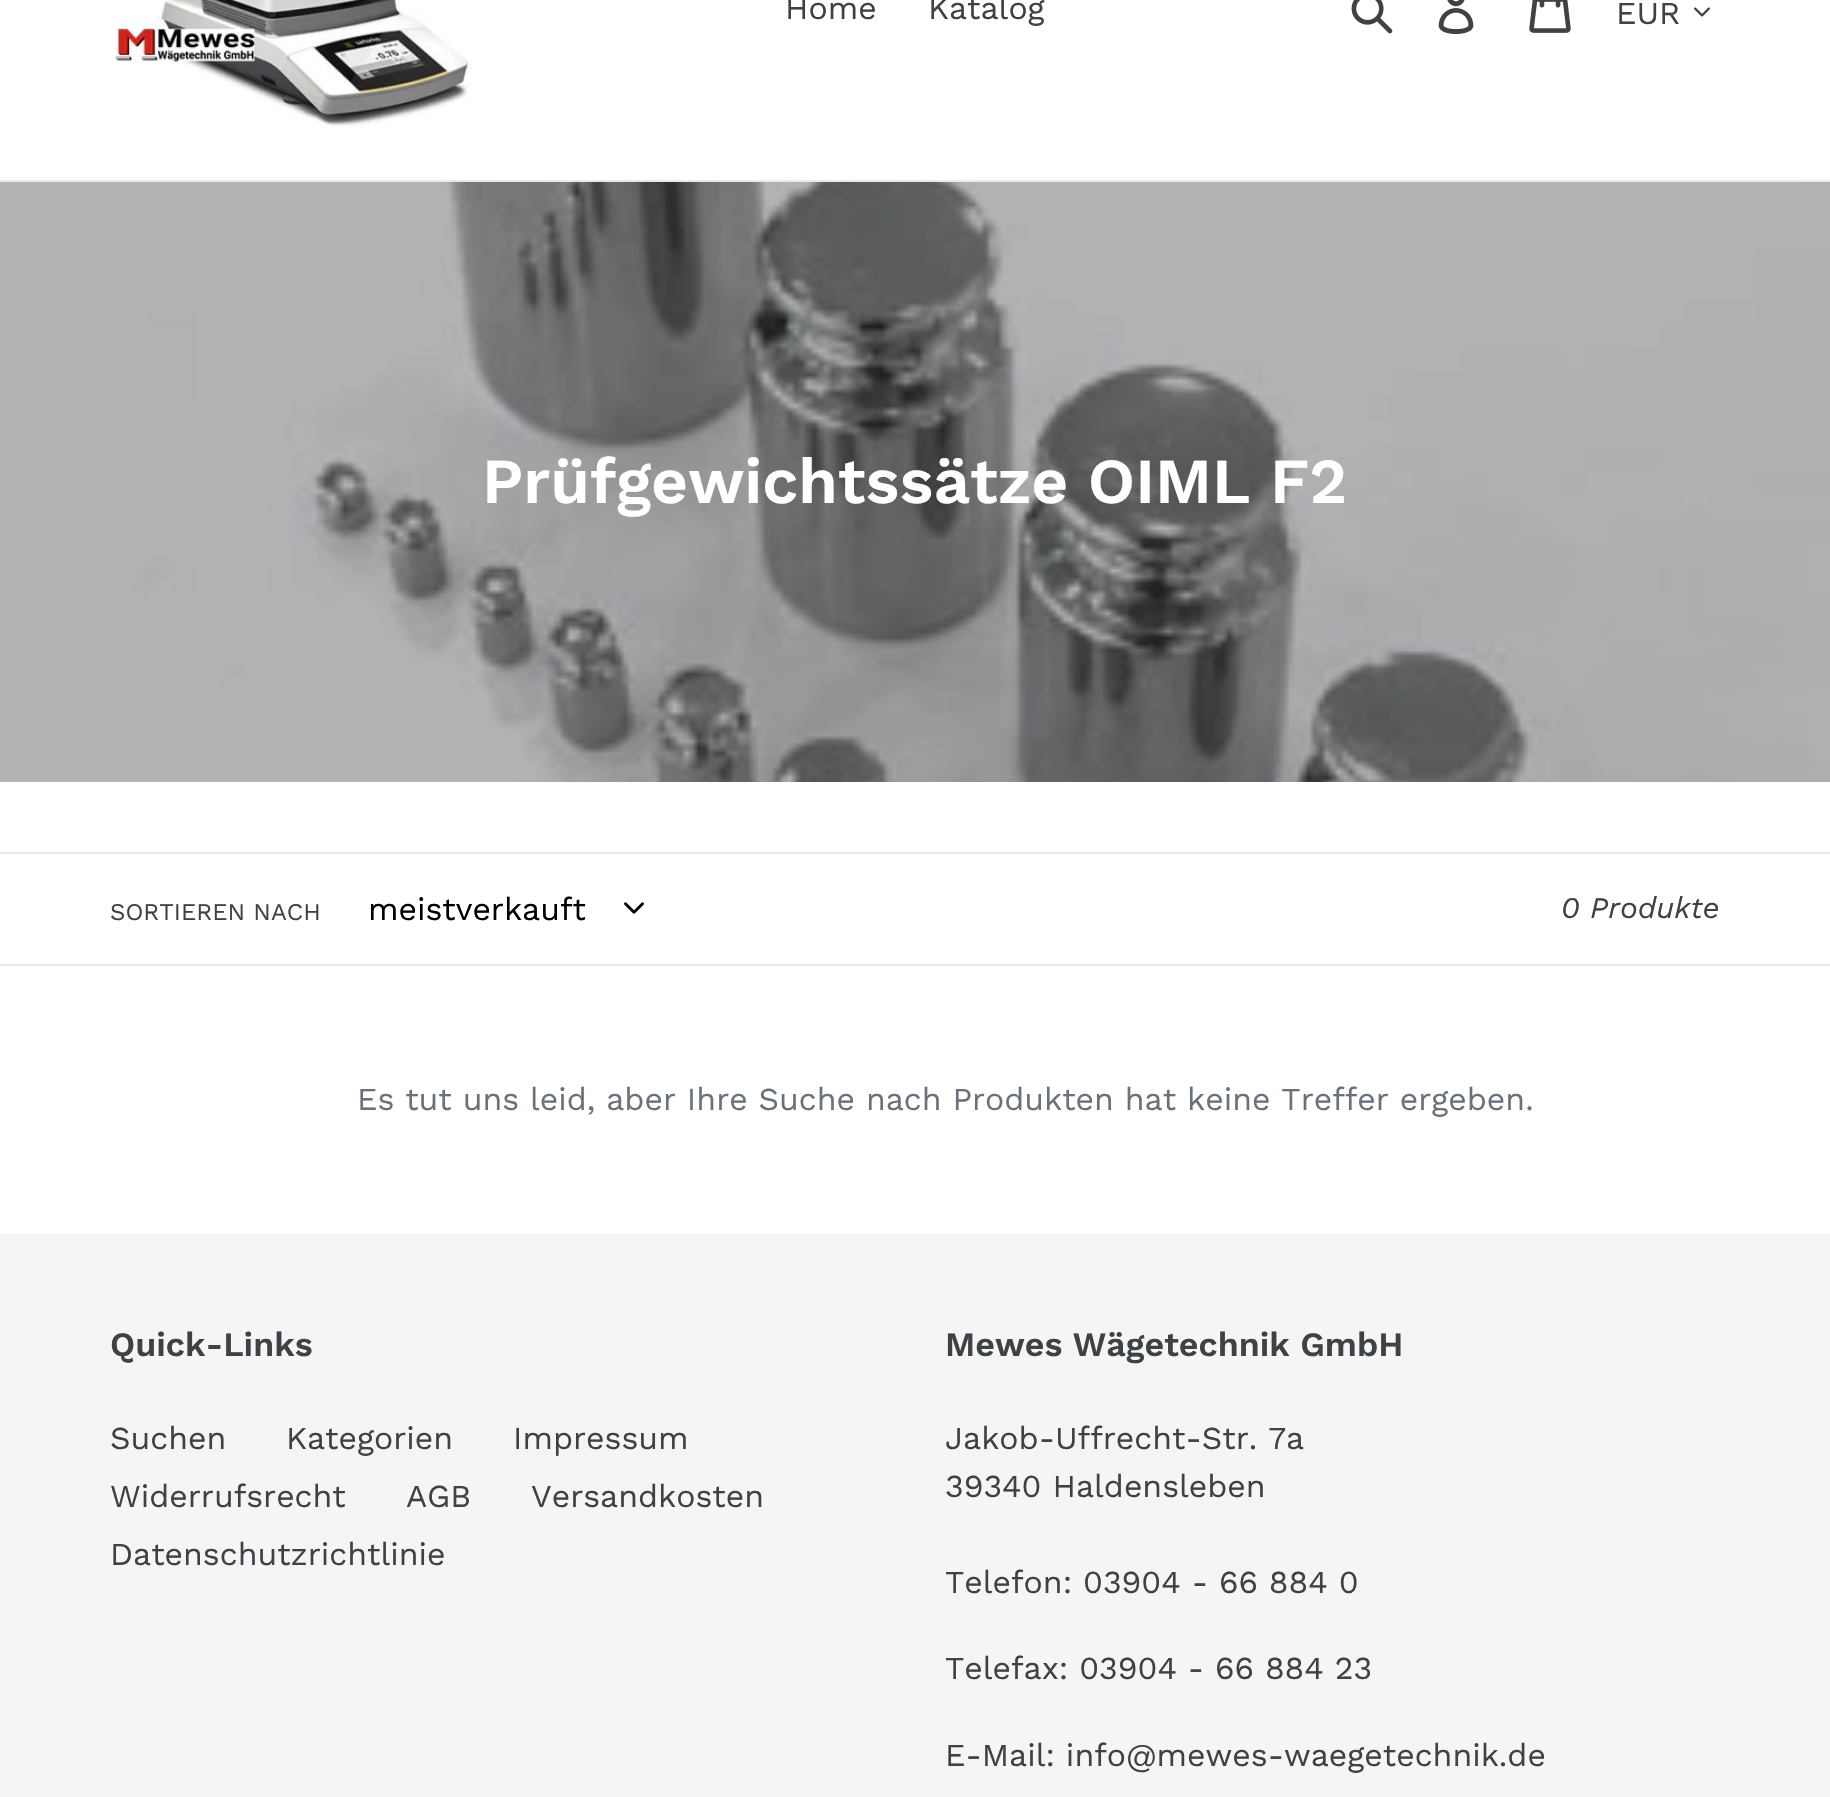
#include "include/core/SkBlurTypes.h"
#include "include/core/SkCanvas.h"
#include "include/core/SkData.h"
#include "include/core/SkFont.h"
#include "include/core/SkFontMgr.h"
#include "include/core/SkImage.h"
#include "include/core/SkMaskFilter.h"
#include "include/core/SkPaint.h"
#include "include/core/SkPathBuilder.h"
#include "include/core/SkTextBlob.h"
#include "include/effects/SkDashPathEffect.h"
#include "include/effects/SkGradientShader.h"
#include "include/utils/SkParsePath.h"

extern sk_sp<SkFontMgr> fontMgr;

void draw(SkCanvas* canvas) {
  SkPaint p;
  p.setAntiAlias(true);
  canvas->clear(SK_ColorWHITE);
  p.setColor(SkColorSetRGB(177, 179, 181));
  canvas->drawRect(SkRect::MakeLTRB(0, 182, 132, 782), p);
  p.setColor(SkColorSetRGB(232, 233, 235));
  canvas->drawRect(SkRect::MakeLTRB(0, 180, 1830, 182), p);
  canvas->drawImageRect(SkImages::DeferredFromEncodedData(SkData::MakeFromFileName("images/1.png")), SkRect::MakeLTRB(115, 0, 472, 127), SkSamplingOptions());
  canvas->drawImageRect(SkImages::DeferredFromEncodedData(SkData::MakeFromFileName("images/2.png")), SkRect::MakeLTRB(1351, 0, 1393, 34), SkSamplingOptions());
  canvas->drawImageRect(SkImages::DeferredFromEncodedData(SkData::MakeFromFileName("images/3.png")), SkRect::MakeLTRB(1438, 0, 1474, 34), SkSamplingOptions());
  canvas->drawImageRect(SkImages::DeferredFromEncodedData(SkData::MakeFromFileName("images/4.png")), SkRect::MakeLTRB(1529, 0, 1571, 33), SkSamplingOptions());
  canvas->drawImageRect(SkImages::DeferredFromEncodedData(SkData::MakeFromFileName("images/5.png")), SkRect::MakeLTRB(1694, 7, 1710, 17), SkSamplingOptions());
  canvas->drawImageRect(SkImages::DeferredFromEncodedData(SkData::MakeFromFileName("images/6.png")), SkRect::MakeLTRB(132, 182, 1830, 782), SkSamplingOptions());
  canvas->drawRect(SkRect::MakeLTRB(0, 852, 1830, 854), p);
  canvas->drawRect(SkRect::MakeLTRB(0, 964, 1830, 966), p);
  canvas->drawImageRect(SkImages::DeferredFromEncodedData(SkData::MakeFromFileName("images/7.png")), SkRect::MakeLTRB(624, 902, 644, 914), SkSamplingOptions());
  p.setColor(SkColorSetRGB(245, 245, 245));
  canvas->drawRect(SkRect::MakeLTRB(0, 1234, 1830, 1797), p);
  SkFont font1(fontMgr->matchFamilyStyle("Work Sans", SkFontStyle::Normal()), 32);
  font1.setSubpixel(true);
  p.setColor(SkColorSetRGB(61, 66, 70));
  canvas->drawString("Home", 785, 19, font1, p);
  canvas->drawString("Katalog", 928, 19, font1, p);
  canvas->drawString("EUR", 1616, 24, font1, p);
  SkFont font2(fontMgr->matchFamilyStyle("Work Sans", SkFontStyle(600, SkFontStyle::kNormal_Width, SkFontStyle::kUpright_Slant)), 64);
  font2.setSubpixel(true);
  p.setColor(SK_ColorWHITE);
  canvas->drawString("Prüfgewichtssätze OIML F2", 482, 503, font2, p);
  SkFont font3(fontMgr->matchFamilyStyle("Work Sans", SkFontStyle::Normal()), 24);
  font3.setSubpixel(true);
  p.setColor(SkColorSetRGB(61, 66, 70));
  canvas->drawString("SORTIEREN NACH", 110, 920, font3, p);
  p.setColor(SK_ColorBLACK);
  canvas->drawString("meistverkauft", 368, 920, font1, p);
  SkFont font4(fontMgr->matchFamilyStyle("Work Sans", SkFontStyle::Italic()), 30);
  font4.setSubpixel(true);
  p.setColor(SkColorSetRGB(61, 66, 70));
  canvas->drawString("0 Produkte", 1561, 918, font4, p);
  p.setColor(SkColorSetRGB(105, 114, 123));
  canvas->drawString("Es tut uns leid, aber Ihre Suche nach Produkten hat keine Treffer ergeben.", 357, 1110, font1, p);
  SkFont font5(fontMgr->matchFamilyStyle("Work Sans", SkFontStyle(600, SkFontStyle::kNormal_Width, SkFontStyle::kUpright_Slant)), 34);
  font5.setSubpixel(true);
  p.setColor(SkColorSetRGB(61, 66, 70));
  canvas->drawString("Quick-Links", 110, 1356, font5, p);
  canvas->drawString("Suchen", 110, 1449, font1, p);
  canvas->drawString("Kategorien", 286, 1449, font1, p);
  canvas->drawString("Impressum", 513, 1449, font1, p);
  canvas->drawString("Widerrufsrecht", 110, 1507, font1, p);
  canvas->drawString("AGB", 406, 1507, font1, p);
  canvas->drawString("Versandkosten", 531, 1507, font1, p);
  canvas->drawString("Datenschutzrichtlinie", 110, 1565, font1, p);
  canvas->drawString("Mewes Wägetechnik GmbH", 945, 1356, font5, p);
  canvas->drawString("Jakob-Uffrecht-Str. 7a", 945, 1449, font1, p);
  canvas->drawString("39340 Haldensleben", 945, 1497, font1, p);
  canvas->drawString("Telefon: 03904 - 66 884 0", 945, 1593, font1, p);
  canvas->drawString("Telefax: 03904 - 66 884 23", 945, 1679, font1, p);
  canvas->drawString("E-Mail: info@mewes-waegetechnik.de", 945, 1766, font1, p);
}
